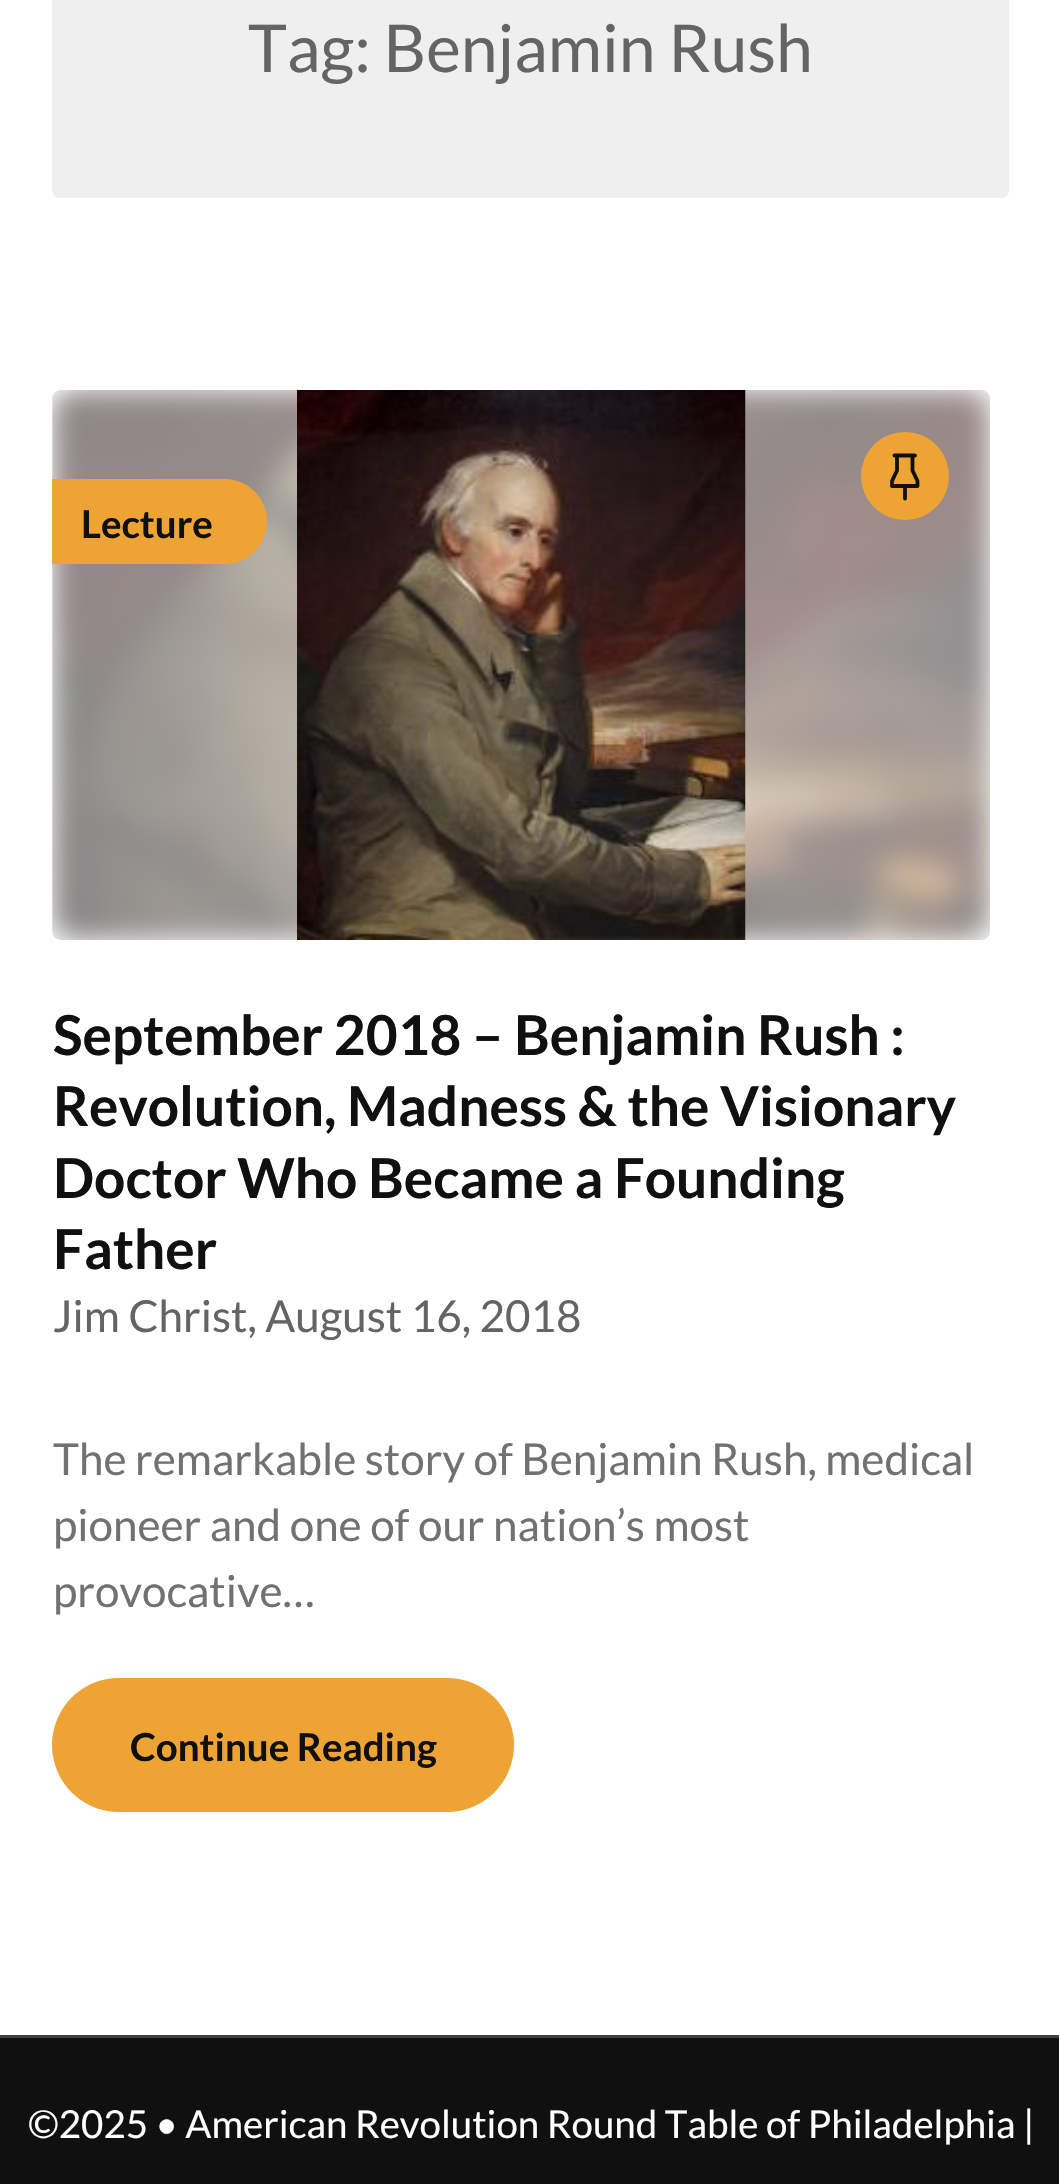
#include "include/core/SkBlurTypes.h"
#include "include/core/SkCanvas.h"
#include "include/core/SkData.h"
#include "include/core/SkFont.h"
#include "include/core/SkFontMgr.h"
#include "include/core/SkImage.h"
#include "include/core/SkMaskFilter.h"
#include "include/core/SkPaint.h"
#include "include/core/SkPathBuilder.h"
#include "include/core/SkTextBlob.h"
#include "include/effects/SkDashPathEffect.h"
#include "include/effects/SkGradientShader.h"
#include "include/utils/SkParsePath.h"

extern sk_sp<SkFontMgr> fontMgr;

void draw(SkCanvas* canvas) {
  SkPaint p;
  p.setAntiAlias(true);
  canvas->clear(SK_ColorWHITE);
  p.setColor(SkColorSetRGB(239, 239, 239));
  canvas->drawRoundRect(SkRect::MakeLTRB(52, -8, 1009, 198), 8, 8, p);
  canvas->drawImageRect(SkImages::DeferredFromEncodedData(SkData::MakeFromFileName("images/1.png")), SkRect::MakeLTRB(52, 390, 990, 940), SkSamplingOptions());
  p.setColor(SkColorSetRGB(237, 164, 53));
  canvas->drawCircle(905, 476, 44, p);
  p.setStyle(SkPaint::kStroke_Style);
  p.setStrokeWidth(3.8f);
  p.setStrokeCap(SkPaint::kRound_Cap);
  p.setStrokeJoin(SkPaint::kRound_Join);
  p.setColor(SkColorSetRGB(16, 16, 16));
  canvas->drawPath(SkPathBuilder().moveTo(897, 455.5f).lineTo(897, 470.5f).lineTo(892, 481).lineTo(892, 486).lineTo(917.5f, 486).lineTo(917.5f, 481).lineTo(912.5f, 470.5f).lineTo(912.5f, 455.5f).moveTo(905, 486).lineTo(905, 498.5f).moveTo(894.5f, 455.5f).lineTo(915, 455.5f).detach(), p);
  p.setStyle(SkPaint::kFill_Style);
  p.setColor(SkColorSetRGB(237, 164, 53));
  canvas->drawPath(SkPathBuilder().moveTo(52, 479).lineTo(224.5f, 479).cubicTo(248, 479, 267, 498, 267, 521.5f).cubicTo(267, 545, 248, 564, 224.5f, 564).lineTo(52, 564).close().detach(), p);
  canvas->drawImageRect(SkImages::DeferredFromEncodedData(SkData::MakeFromFileName("images/2.png")), SkRect::MakeLTRB(297, 390, 746, 940), SkSamplingOptions());
  canvas->drawRoundRect(SkRect::MakeLTRB(52, 1678, 514, 1812), 67, 67, p);
  p.setColor(SkColorSetRGB(16, 16, 16));
  canvas->drawRect(SkRect::MakeLTRB(0, 2038, 1059, 2184), p);
  p.setColor(SkColorSetRGB(64, 64, 64));
  canvas->drawRect(SkRect::MakeLTRB(0, 2035, 1059, 2038), p);
  SkFont font1(fontMgr->matchFamilyStyle("Lato", SkFontStyle::Normal()), 66);
  font1.setSubpixel(true);
  p.setColor(SkColorSetRGB(100, 100, 100));
  canvas->drawString("Tag: Benjamin Rush", 248, 72, font1, p);
  SkFont font2(fontMgr->matchFamilyStyle("Lato", SkFontStyle::Bold()), 38.5f);
  font2.setSubpixel(true);
  p.setColor(SkColorSetRGB(16, 16, 16));
  canvas->drawString("Lecture", 81, 538, font2, p);
  SkFont font3(fontMgr->matchFamilyStyle("Lato", SkFontStyle::Bold()), 55);
  font3.setSubpixel(true);
  canvas->drawString("September 2018 – Benjamin Rush :", 53, 1055, font3, p);
  canvas->drawString("Revolution, Madness & the Visionary", 53, 1126, font3, p);
  canvas->drawString("Doctor Who Became a Founding", 53, 1198, font3, p);
  canvas->drawString("Father", 53, 1269, font3, p);
  SkFont font4(fontMgr->matchFamilyStyle("Lato", SkFontStyle::Normal()), 44);
  font4.setSubpixel(true);
  p.setColor(SkColorSetRGB(100, 100, 100));
  canvas->drawString("Jim Christ, August 16, 2018", 53, 1332, font4, p);
  p.setColor(SkColorSetRGB(113, 113, 113));
  canvas->drawString("The remarkable story of Benjamin Rush, medical", 53, 1475, font4, p);
  canvas->drawString("pioneer and one of our nation’s most", 53, 1541, font4, p);
  canvas->drawString("provocative…", 53, 1607, font4, p);
  p.setColor(SkColorSetRGB(16, 16, 16));
  canvas->drawString("Continue Reading", 130, 1761, font2, p);
  SkFont font5(fontMgr->matchFamilyStyle("Lato", SkFontStyle::Normal()), 38.5f);
  font5.setSubpixel(true);
  p.setColor(SK_ColorWHITE);
  canvas->drawString("©2025 • American Revolution Round Table of Philadelphia |", 28, 2138, font5, p);
}
